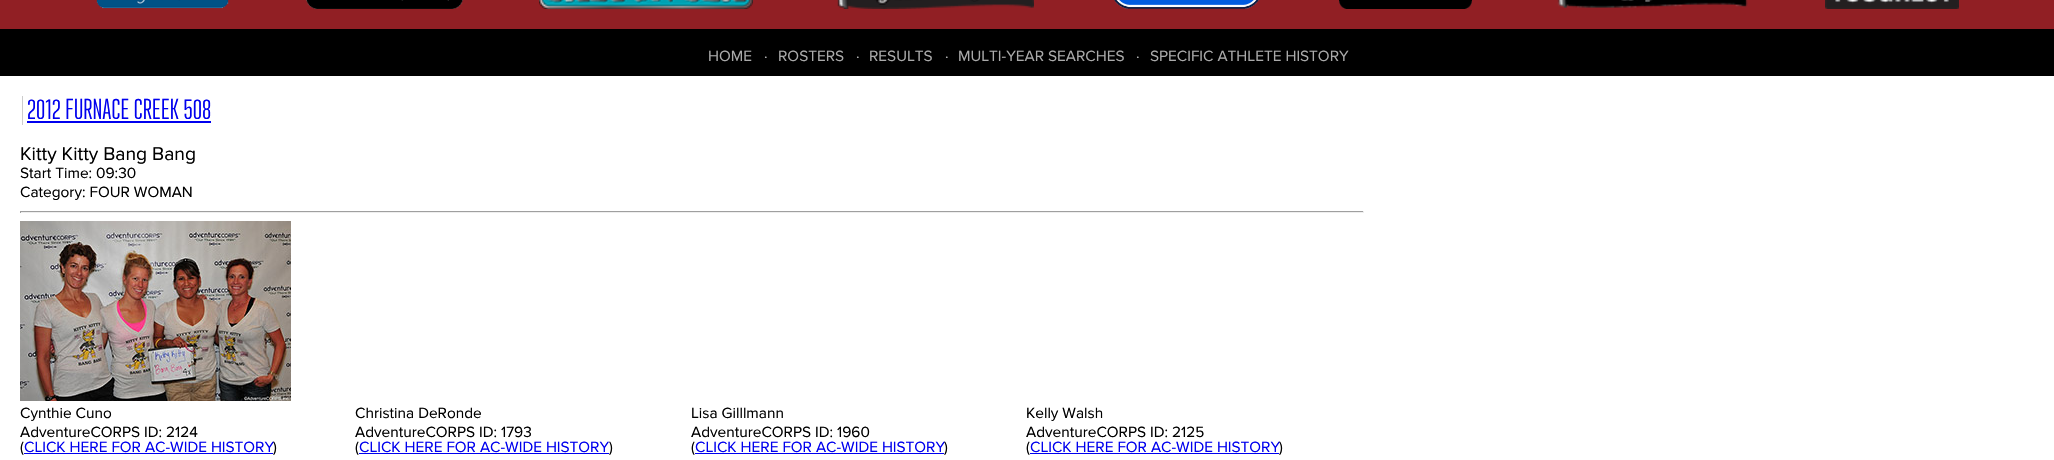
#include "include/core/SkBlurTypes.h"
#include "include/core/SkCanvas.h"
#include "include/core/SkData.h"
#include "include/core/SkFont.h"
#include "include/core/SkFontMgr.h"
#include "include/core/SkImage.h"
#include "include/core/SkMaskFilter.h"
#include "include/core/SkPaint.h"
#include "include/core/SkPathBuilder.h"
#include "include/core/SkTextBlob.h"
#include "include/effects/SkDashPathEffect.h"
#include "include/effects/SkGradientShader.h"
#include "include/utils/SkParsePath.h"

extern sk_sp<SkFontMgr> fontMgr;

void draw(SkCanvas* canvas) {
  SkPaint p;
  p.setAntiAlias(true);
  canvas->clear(SkColorSetRGB(145, 31, 36));
  canvas->drawImageRect(SkImages::DeferredFromEncodedData(SkData::MakeFromFileName("images/1.png")), SkRect::MakeLTRB(96, 0, 229, 9), SkSamplingOptions());
  canvas->drawImageRect(SkImages::DeferredFromEncodedData(SkData::MakeFromFileName("images/2.png")), SkRect::MakeLTRB(306, 0, 463, 9), SkSamplingOptions());
  canvas->drawImageRect(SkImages::DeferredFromEncodedData(SkData::MakeFromFileName("images/3.png")), SkRect::MakeLTRB(539, 0, 753, 9), SkSamplingOptions());
  canvas->drawImageRect(SkImages::DeferredFromEncodedData(SkData::MakeFromFileName("images/4.png")), SkRect::MakeLTRB(837, 0, 1034, 9), SkSamplingOptions());
  canvas->drawImageRect(SkImages::DeferredFromEncodedData(SkData::MakeFromFileName("images/5.png")), SkRect::MakeLTRB(1114, 0, 1259, 9), SkSamplingOptions());
  canvas->drawImageRect(SkImages::DeferredFromEncodedData(SkData::MakeFromFileName("images/6.png")), SkRect::MakeLTRB(1339, 0, 1472, 9), SkSamplingOptions());
  canvas->drawImageRect(SkImages::DeferredFromEncodedData(SkData::MakeFromFileName("images/7.png")), SkRect::MakeLTRB(1557, 0, 1748, 8), SkSamplingOptions());
  canvas->drawImageRect(SkImages::DeferredFromEncodedData(SkData::MakeFromFileName("images/8.png")), SkRect::MakeLTRB(1825, 0, 1959, 9), SkSamplingOptions());
  p.setColor(SK_ColorBLACK);
  canvas->drawRect(SkRect::MakeLTRB(0, 29, 2054, 76), p);
  p.setColor(SK_ColorWHITE);
  canvas->drawRect(SkRect::MakeLTRB(0, 76, 2054, 460), p);
  p.setColor(SkColorSetRGB(204, 204, 204));
  canvas->drawRect(SkRect::MakeLTRB(22, 96, 23, 125), p);
  p.setColor(SkColorSetRGB(0, 0, 238));
  canvas->drawRect(SkRect::MakeLTRB(27, 121, 211, 123), p);
  p.setColor(SkColorSetRGB(159, 159, 159));
  canvas->drawRect(SkRect::MakeLTRB(20, 211, 1364, 212), p);
  p.setColor(SkColorSetRGB(238, 238, 238));
  canvas->drawRect(SkRect::MakeLTRB(1363, 211, 1364, 213), p);
  canvas->drawRect(SkRect::MakeLTRB(20, 212, 1364, 213), p);
  p.setColor(SkColorSetRGB(159, 159, 159));
  canvas->drawRect(SkRect::MakeLTRB(20, 211, 21, 213), p);
  canvas->drawImageRect(SkImages::DeferredFromEncodedData(SkData::MakeFromFileName("images/9.png")), SkRect::MakeLTRB(20, 221, 291, 401), SkSamplingOptions());
  p.setColor(SkColorSetRGB(0, 0, 238));
  canvas->drawRect(SkRect::MakeLTRB(24, 453, 273, 454), p);
  canvas->drawRect(SkRect::MakeLTRB(359, 453, 609, 454), p);
  canvas->drawRect(SkRect::MakeLTRB(695, 453, 944, 454), p);
  canvas->drawRect(SkRect::MakeLTRB(1030, 453, 1279, 454), p);
  SkFont font1(fontMgr->matchFamilyStyle("Proxima Nova", SkFontStyle::Normal()), 15.4f);
  font1.setSubpixel(true);
  p.setColor(SkColorSetRGB(170, 170, 170));
  canvas->drawString("HOME", 708, 61, font1, p);
  p.setColor(SkColorSetRGB(187, 187, 187));
  canvas->drawString("·", 764, 61, font1, p);
  p.setColor(SkColorSetRGB(170, 170, 170));
  canvas->drawString("ROSTERS", 778, 61, font1, p);
  p.setColor(SkColorSetRGB(187, 187, 187));
  canvas->drawString("·", 856, 61, font1, p);
  p.setColor(SkColorSetRGB(170, 170, 170));
  canvas->drawString("RESULTS", 869, 61, font1, p);
  p.setColor(SkColorSetRGB(187, 187, 187));
  canvas->drawString("·", 945, 61, font1, p);
  p.setColor(SkColorSetRGB(170, 170, 170));
  canvas->drawString("MULTI-YEAR SEARCHES", 958, 61, font1, p);
  p.setColor(SkColorSetRGB(187, 187, 187));
  canvas->drawString("·", 1136, 61, font1, p);
  p.setColor(SkColorSetRGB(170, 170, 170));
  canvas->drawString("SPECIFIC ATHLETE HISTORY", 1150, 61, font1, p);
  SkFont font2(fontMgr->matchFamilyStyle("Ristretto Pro", SkFontStyle::Normal()), 28.75f);
  font2.setSubpixel(true);
  p.setColor(SkColorSetRGB(0, 0, 238));
  canvas->drawString("2012 FURNACE CREEK 508", 27, 119, font2, p);
  SkFont font3(fontMgr->matchFamilyStyle("Proxima Nova", SkFontStyle::Normal()), 19.25f);
  font3.setSubpixel(true);
  p.setColor(SK_ColorBLACK);
  canvas->drawString("Kitty Kitty Bang Bang", 20, 160, font3, p);
  canvas->drawString("Start Time: 09:30", 20, 178, font1, p);
  canvas->drawString("Category: FOUR WOMAN", 20, 197, font1, p);
  canvas->drawString("Cynthie Cuno", 20, 418, font1, p);
  canvas->drawString("AdventureCORPS ID: 2124", 20, 437, font1, p);
  canvas->drawString("(", 20, 452, font1, p);
  p.setColor(SkColorSetRGB(0, 0, 238));
  canvas->drawString("CLICK HERE FOR AC-WIDE HISTORY", 24, 452, font1, p);
  p.setColor(SK_ColorBLACK);
  canvas->drawString(")", 273, 452, font1, p);
  canvas->drawString("Christina DeRonde", 355, 418, font1, p);
  canvas->drawString("AdventureCORPS ID: 1793", 355, 437, font1, p);
  canvas->drawString("(", 355, 452, font1, p);
  p.setColor(SkColorSetRGB(0, 0, 238));
  canvas->drawString("CLICK HERE FOR AC-WIDE HISTORY", 359, 452, font1, p);
  p.setColor(SK_ColorBLACK);
  canvas->drawString(")", 609, 452, font1, p);
  canvas->drawString("Lisa Gilllmann", 691, 418, font1, p);
  canvas->drawString("AdventureCORPS ID: 1960", 691, 437, font1, p);
  canvas->drawString("(", 691, 452, font1, p);
  p.setColor(SkColorSetRGB(0, 0, 238));
  canvas->drawString("CLICK HERE FOR AC-WIDE HISTORY", 695, 452, font1, p);
  p.setColor(SK_ColorBLACK);
  canvas->drawString(")", 944, 452, font1, p);
  canvas->drawString("Kelly Walsh", 1026, 418, font1, p);
  canvas->drawString("AdventureCORPS ID: 2125", 1026, 437, font1, p);
  canvas->drawString("(", 1026, 452, font1, p);
  p.setColor(SkColorSetRGB(0, 0, 238));
  canvas->drawString("CLICK HERE FOR AC-WIDE HISTORY", 1030, 452, font1, p);
  p.setColor(SK_ColorBLACK);
  canvas->drawString(")", 1279, 452, font1, p);
}
